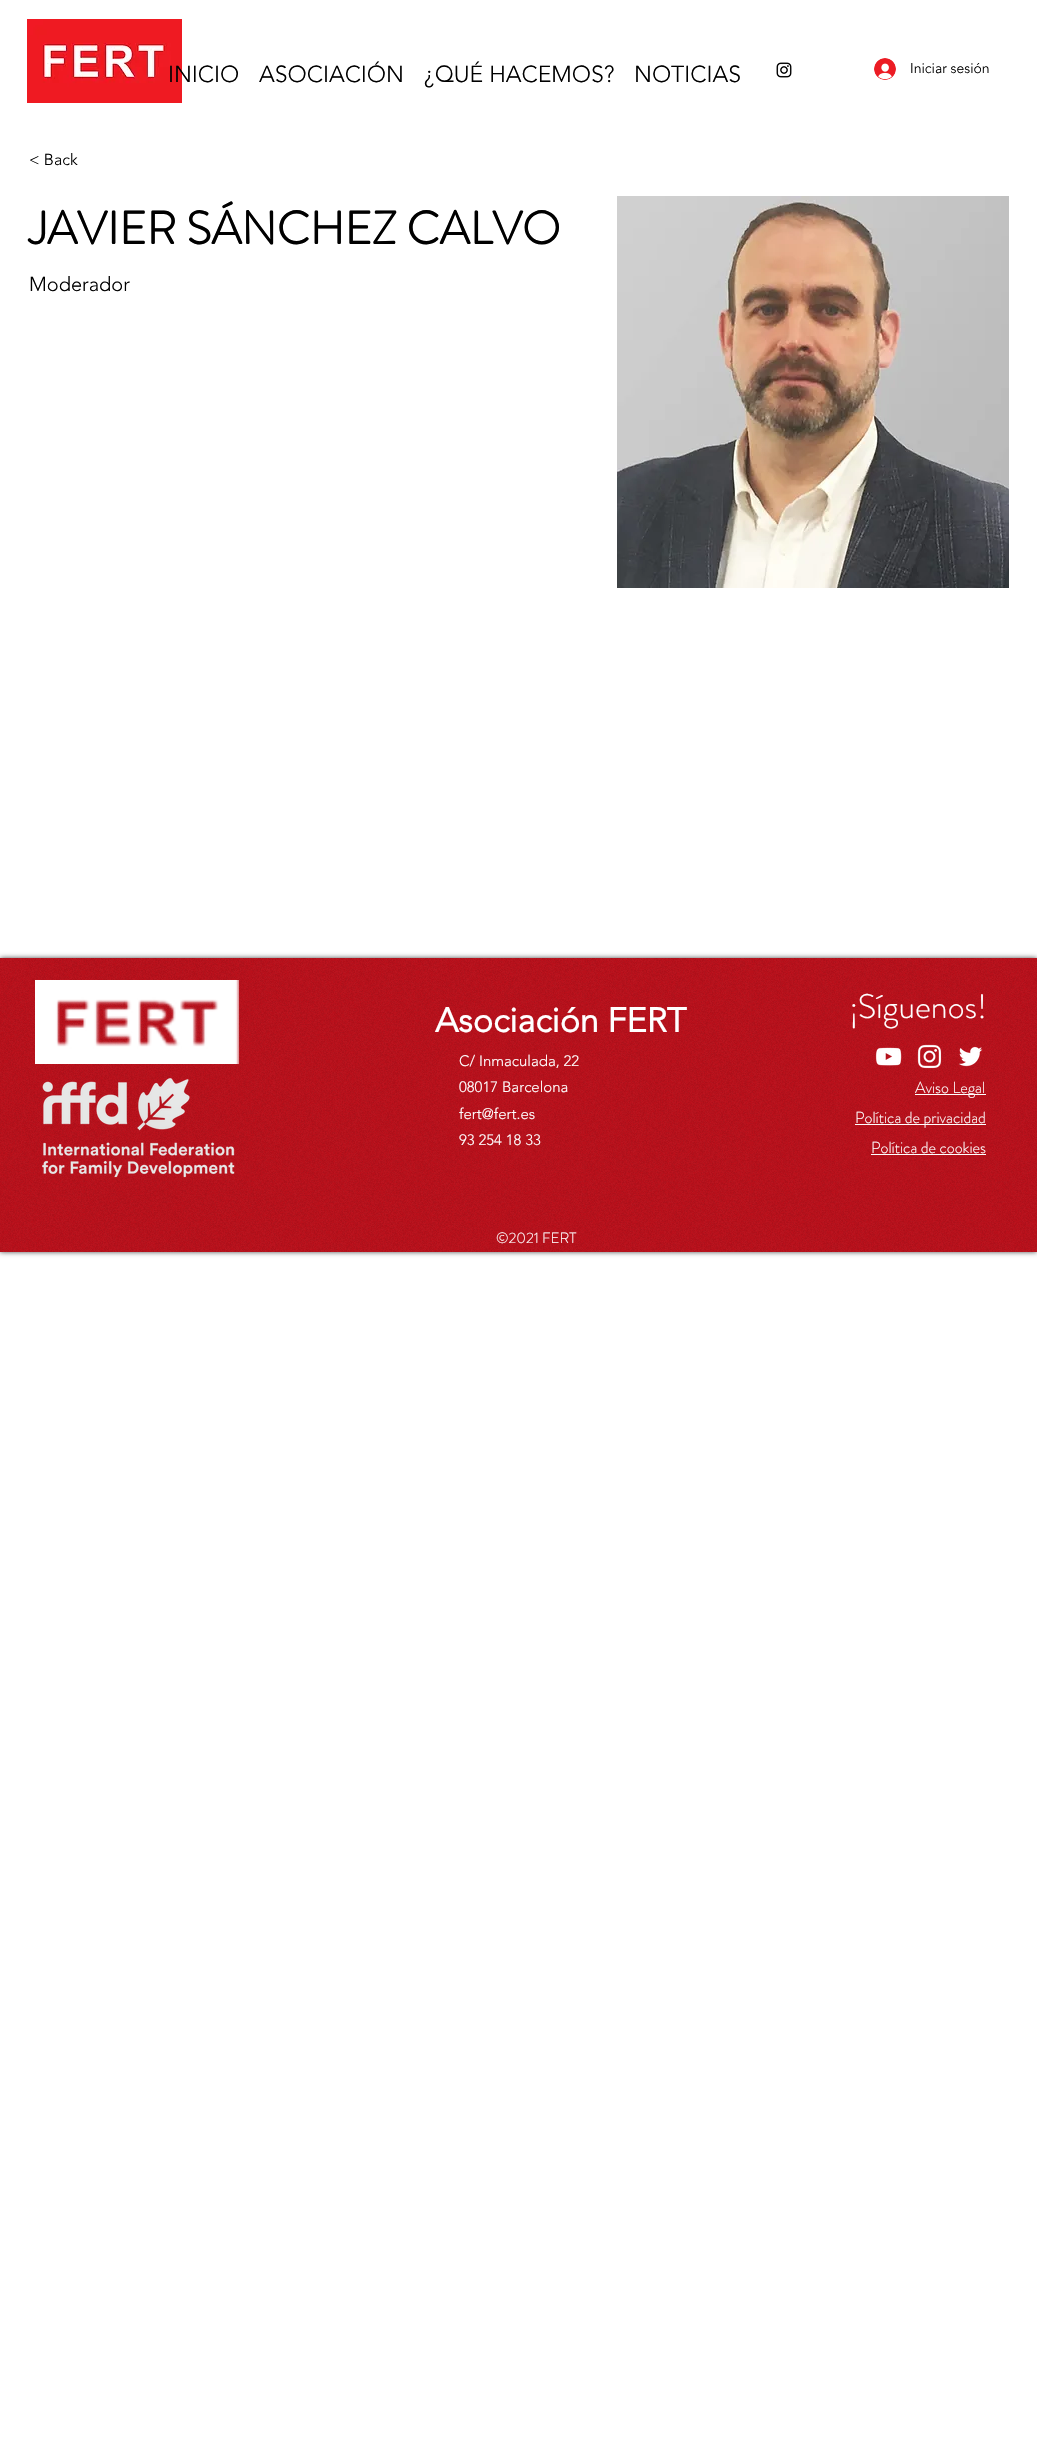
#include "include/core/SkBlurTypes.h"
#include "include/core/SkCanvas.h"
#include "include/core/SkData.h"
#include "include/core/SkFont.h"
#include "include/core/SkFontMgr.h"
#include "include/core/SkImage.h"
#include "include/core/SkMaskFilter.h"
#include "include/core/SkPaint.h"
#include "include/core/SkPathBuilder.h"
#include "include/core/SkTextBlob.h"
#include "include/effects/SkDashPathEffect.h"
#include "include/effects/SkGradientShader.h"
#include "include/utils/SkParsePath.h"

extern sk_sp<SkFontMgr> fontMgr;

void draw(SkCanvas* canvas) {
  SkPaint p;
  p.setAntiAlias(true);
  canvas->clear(SK_ColorWHITE);
  canvas->drawImageRect(SkImages::DeferredFromEncodedData(SkData::MakeFromFileName("images/1.png")), SkRect::MakeLTRB(27, 19, 182, 103), SkSamplingOptions());
  canvas->drawImageRect(SkImages::DeferredFromEncodedData(SkData::MakeFromFileName("images/2.png")), SkRect::MakeLTRB(776, 62, 792, 78), SkSamplingOptions());
  canvas->drawImageRect(SkImages::DeferredFromEncodedData(SkData::MakeFromFileName("images/3.png")), SkRect::MakeLTRB(874, 58, 896, 80), SkSamplingOptions());
  canvas->drawImageRect(SkImages::DeferredFromEncodedData(SkData::MakeFromFileName("images/4.png")), SkRect::MakeLTRB(617, 196, 1009, 588), SkSamplingOptions());
  p.setColor(SkColorSetARGB(179, 0, 0, 0));
  p.setMaskFilter(SkMaskFilter::MakeBlur(kNormal_SkBlurStyle, 2.5f));
  canvas->drawRect(SkRect::MakeLTRB(0, 958, 1037, 1252), p);
  p.setMaskFilter(nullptr);
  p.setColor(SkColorSetRGB(186, 15, 26));
  canvas->drawRect(SkRect::MakeLTRB(0, 958, 1037, 1252), p);
  canvas->drawImageRect(SkImages::DeferredFromEncodedData(SkData::MakeFromFileName("images/5.png")), SkRect::MakeLTRB(0, 958, 1037, 1252), SkSamplingOptions());
  canvas->drawImageRect(SkImages::DeferredFromEncodedData(SkData::MakeFromFileName("images/6.png")), SkRect::MakeLTRB(35, 980, 239, 1064), SkSamplingOptions());
  canvas->drawImageRect(SkImages::DeferredFromEncodedData(SkData::MakeFromFileName("images/7.png")), SkRect::MakeLTRB(42, 1078, 235, 1178), SkSamplingOptions());
  canvas->drawImageRect(SkImages::DeferredFromEncodedData(SkData::MakeFromFileName("images/8.png")), SkRect::MakeLTRB(875, 1047, 902, 1066), SkSamplingOptions());
  canvas->drawImageRect(SkImages::DeferredFromEncodedData(SkData::MakeFromFileName("images/9.png")), SkRect::MakeLTRB(917, 1044, 942, 1069), SkSamplingOptions());
  canvas->drawImageRect(SkImages::DeferredFromEncodedData(SkData::MakeFromFileName("images/10.png")), SkRect::MakeLTRB(959, 1046, 983, 1067), SkSamplingOptions());
  p.setColor(SK_ColorWHITE);
  canvas->drawRect(SkRect::MakeLTRB(915, 1094, 986, 1095), p);
  canvas->drawRect(SkRect::MakeLTRB(855, 1124, 986, 1125), p);
  canvas->drawRect(SkRect::MakeLTRB(871, 1154, 986, 1155), p);
  SkFont font1(fontMgr->matchFamilyStyle("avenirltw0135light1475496", SkFontStyle(300, SkFontStyle::kNormal_Width, SkFontStyle::kUpright_Slant)), 23);
  font1.setSubpixel(true);
  p.setColor(SK_ColorBLACK);
  canvas->drawString("INICIO", 168, 82, font1, p);
  canvas->drawString("ASOCIACIÓN", 259, 82, font1, p);
  canvas->drawString("¿QUÉ HACEMOS?", 424, 82, font1, p);
  canvas->drawString("NOTICIAS", 634, 82, font1, p);
  SkFont font2(fontMgr->matchFamilyStyle("avenirltw0135light1475496", SkFontStyle(300, SkFontStyle::kNormal_Width, SkFontStyle::kUpright_Slant)), 14);
  font2.setSubpixel(true);
  canvas->drawString("Iniciar sesión", 910, 73, font2, p);
  SkFont font3(fontMgr->matchFamilyStyle("avenirltw0135light1475496", SkFontStyle(300, SkFontStyle::kNormal_Width, SkFontStyle::kUpright_Slant)), 16);
  font3.setSubpixel(true);
  canvas->drawString("< Back", 29, 165, font3, p);
  SkFont font4(fontMgr->matchFamilyStyle("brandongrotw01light", SkFontStyle::Bold()), 46);
  font4.setSubpixel(true);
  canvas->drawString("JAVIER SÁNCHEZ CALVO", 29, 244, font4, p);
  SkFont font5(fontMgr->matchFamilyStyle("avenirltw0135light1475496", SkFontStyle(300, SkFontStyle::kNormal_Width, SkFontStyle::kUpright_Slant)), 20);
  font5.setSubpixel(true);
  canvas->drawString("Moderador", 29, 291, font5, p);
  SkFont font6(fontMgr->matchFamilyStyle("avenirltw0135light1475496", SkFontStyle::Bold()), 34);
  font6.setSubpixel(true);
  p.setColor(SK_ColorWHITE);
  canvas->drawString("Asociación FERT", 435, 1032, font6, p);
  SkFont font7(fontMgr->matchFamilyStyle("brandongrotw01light", SkFontStyle(300, SkFontStyle::kNormal_Width, SkFontStyle::kUpright_Slant)), 34);
  font7.setSubpixel(true);
  canvas->drawString("¡Síguenos!", 850, 1018, font7, p);
  SkFont font8(fontMgr->matchFamilyStyle("avenirltw0135light1475496", SkFontStyle(300, SkFontStyle::kNormal_Width, SkFontStyle::kUpright_Slant)), 15);
  font8.setSubpixel(true);
  canvas->drawString("C/ Inmaculada, 22", 459, 1066, font8, p);
  canvas->drawString("08017 Barcelona", 459, 1092, font8, p);
  canvas->drawString("fert@fert.es", 459, 1119, font8, p);
  canvas->drawString("93 254 18 33", 459, 1145, font8, p);
  SkFont font9(fontMgr->matchFamilyStyle("brandongrotw01light", SkFontStyle(300, SkFontStyle::kNormal_Width, SkFontStyle::kUpright_Slant)), 16);
  font9.setSubpixel(true);
  canvas->drawString("Aviso Legal", 915, 1093, font9, p);
  canvas->drawString("Política de privacidad", 855, 1123, font9, p);
  canvas->drawString("Política de cookies", 871, 1153, font9, p);
  SkFont font10(fontMgr->matchFamilyStyle("brandongrotw01light", SkFontStyle(300, SkFontStyle::kNormal_Width, SkFontStyle::kUpright_Slant)), 15);
  font10.setSubpixel(true);
  canvas->drawString("©2021 FERT", 496, 1243, font10, p);
}
